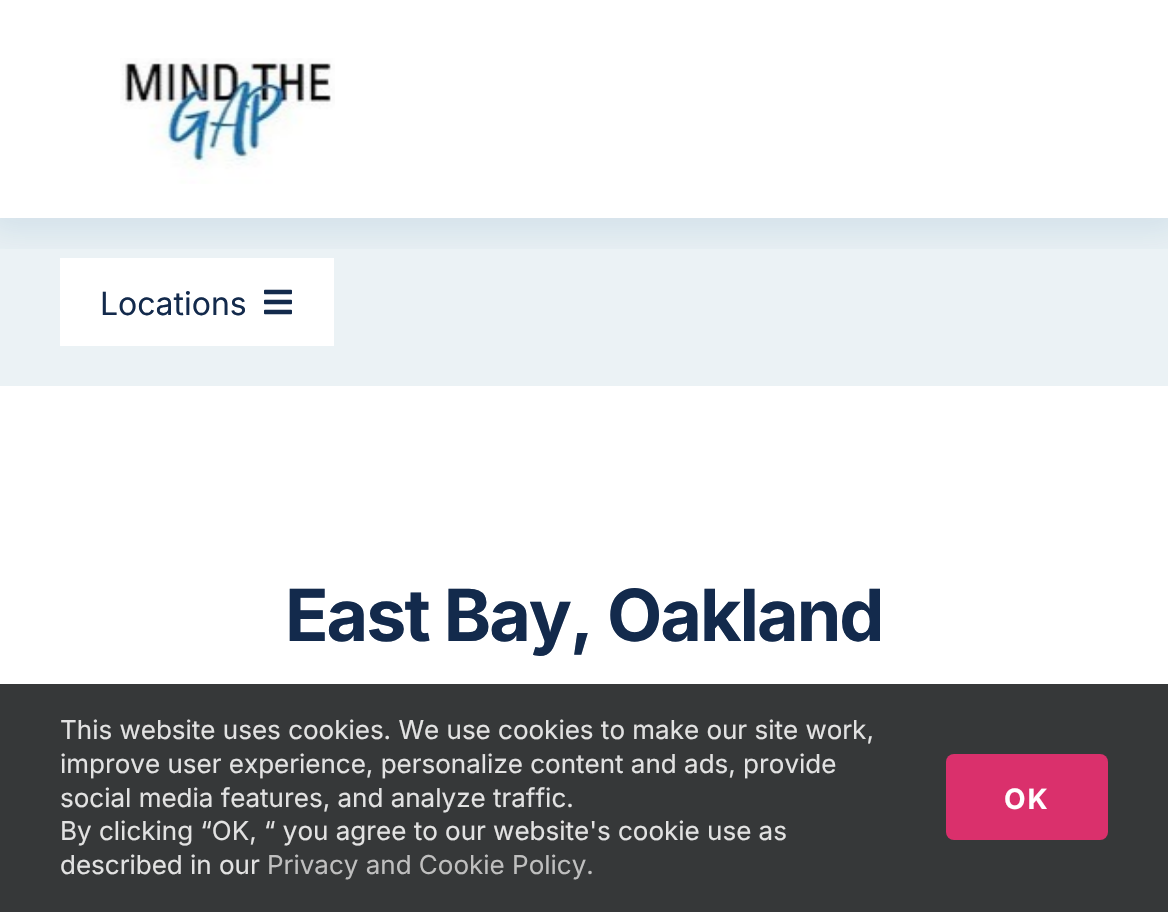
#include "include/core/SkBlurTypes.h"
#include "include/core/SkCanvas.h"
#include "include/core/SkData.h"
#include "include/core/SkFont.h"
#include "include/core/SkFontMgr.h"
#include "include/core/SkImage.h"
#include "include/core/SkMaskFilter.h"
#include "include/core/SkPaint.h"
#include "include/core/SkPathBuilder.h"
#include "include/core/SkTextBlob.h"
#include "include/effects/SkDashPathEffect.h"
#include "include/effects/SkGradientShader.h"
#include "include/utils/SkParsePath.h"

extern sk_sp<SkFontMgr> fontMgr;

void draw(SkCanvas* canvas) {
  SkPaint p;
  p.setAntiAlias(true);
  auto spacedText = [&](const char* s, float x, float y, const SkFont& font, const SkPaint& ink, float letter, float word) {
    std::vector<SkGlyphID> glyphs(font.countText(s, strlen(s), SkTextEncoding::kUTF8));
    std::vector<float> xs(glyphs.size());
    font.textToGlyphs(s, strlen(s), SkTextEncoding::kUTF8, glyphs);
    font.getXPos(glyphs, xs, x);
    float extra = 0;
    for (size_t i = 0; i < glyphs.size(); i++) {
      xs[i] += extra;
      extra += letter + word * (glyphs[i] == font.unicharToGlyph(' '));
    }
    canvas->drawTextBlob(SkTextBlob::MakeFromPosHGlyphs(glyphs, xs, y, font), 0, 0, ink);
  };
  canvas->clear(SK_ColorWHITE);
  p.setColor(SkColorSetRGB(235, 242, 245));
  canvas->drawRect(SkRect::MakeLTRB(0, 218, 1168, 386), p);
  p.setColor(SK_ColorWHITE);
  canvas->drawRect(SkRect::MakeLTRB(60, 258, 334, 346), p);
  canvas->save();
  canvas->clipRect(SkRect::MakeLTRB(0, 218, 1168, 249));
  p.setColor(SkColorSetARGB(26, 0, 66, 124));
  p.setMaskFilter(SkMaskFilter::MakeBlur(kNormal_SkBlurStyle, 18));
  canvas->drawRect(SkRect::MakeLTRB(-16, -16, 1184, 234), p);
  p.setMaskFilter(nullptr);
  canvas->restore();
  canvas->drawImageRect(SkImages::DeferredFromEncodedData(SkData::MakeFromFileName("images/1.png")), SkRect::MakeLTRB(120, 58, 335, 184), SkSamplingOptions());
  canvas->drawImageRect(SkImages::DeferredFromEncodedData(SkData::MakeFromFileName("images/2.png")), SkRect::MakeLTRB(264, 289, 292, 315), SkSamplingOptions());
  p.setColor(SkColorSetRGB(54, 56, 57));
  canvas->drawRect(SkRect::MakeLTRB(0, 684, 1168, 912), p);
  p.setColor(SkColorSetRGB(218, 48, 108));
  canvas->drawRoundRect(SkRect::MakeLTRB(946, 754, 1108, 840), 8, 8, p);
  SkFont font1(fontMgr->matchFamilyStyle("Inter", SkFontStyle::Normal()), 32);
  font1.setSubpixel(true);
  p.setColor(SkColorSetRGB(19, 42, 76));
  canvas->drawString("Locations", 100, 315, font1, p);
  SkFont font2(fontMgr->matchFamilyStyle("Inter", SkFontStyle::Bold()), 71.75f);
  font2.setSubpixel(true);
  spacedText("East Bay, Oakland", 285, 641, font2, p, -2, 0);
  SkFont font3(fontMgr->matchFamilyStyle("Inter", SkFontStyle::Normal()), 26);
  font3.setSubpixel(true);
  p.setColor(SkColorSetRGB(226, 226, 226));
  canvas->drawString("This website uses cookies. We use cookies to make our site work,", 60, 739, font3, p);
  canvas->drawString("improve user experience, personalize content and ads, provide", 60, 773, font3, p);
  canvas->drawString("social media features, and analyze traffic.", 60, 807, font3, p);
  canvas->drawString("By clicking “OK, “ you agree to our website's cookie use as", 60, 840, font3, p);
  canvas->drawString("described in our", 60, 874, font3, p);
  p.setColor(SkColorSetRGB(191, 191, 191));
  canvas->drawString("Privacy and Cookie Policy.", 267, 874, font3, p);
  SkFont font4(fontMgr->matchFamilyStyle("Inter", SkFontStyle::Bold()), 28);
  font4.setSubpixel(true);
  p.setColor(SK_ColorWHITE);
  spacedText("OK", 1004, 809, font4, p, 2, 0);
}
